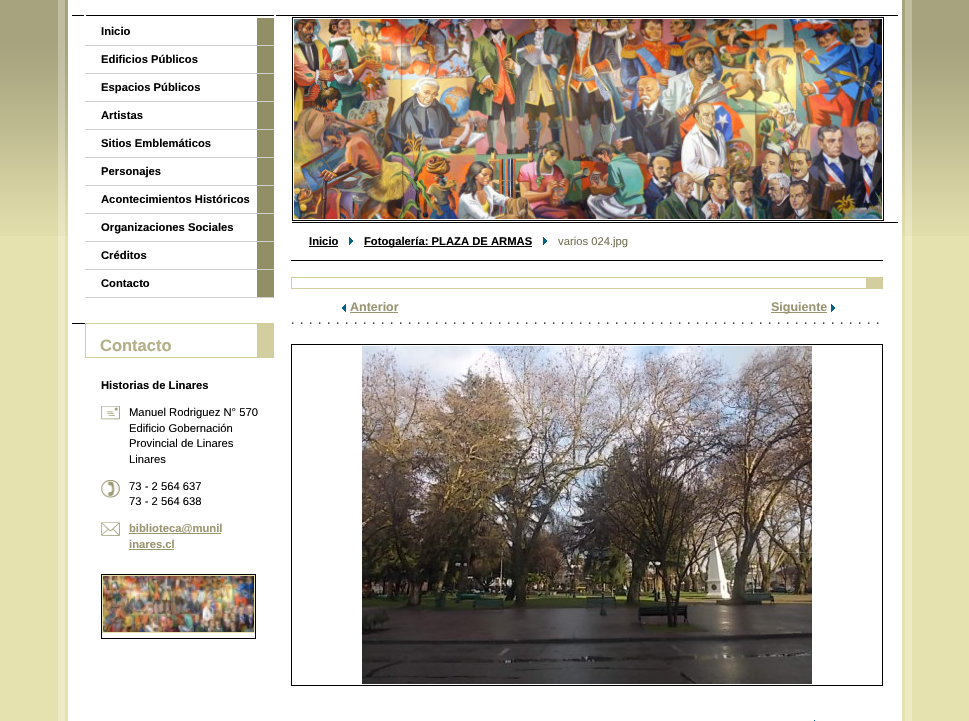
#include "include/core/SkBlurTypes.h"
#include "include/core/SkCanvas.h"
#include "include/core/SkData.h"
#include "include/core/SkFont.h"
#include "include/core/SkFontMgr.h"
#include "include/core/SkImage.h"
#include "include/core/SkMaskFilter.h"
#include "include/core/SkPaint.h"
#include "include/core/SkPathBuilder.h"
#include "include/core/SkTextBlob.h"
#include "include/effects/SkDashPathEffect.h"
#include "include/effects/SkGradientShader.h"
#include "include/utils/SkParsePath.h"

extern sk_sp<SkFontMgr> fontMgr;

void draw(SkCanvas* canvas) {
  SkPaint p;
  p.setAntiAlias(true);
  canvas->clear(SkColorSetRGB(230, 226, 175));
  canvas->drawImageRect(SkImages::DeferredFromEncodedData(SkData::MakeFromFileName("images/1.png")), SkRect::MakeLTRB(0, 0, 969, 236), SkSamplingOptions());
  p.setColor(SkColorSetRGB(237, 234, 197));
  canvas->drawRect(SkRect::MakeLTRB(58, 236, 912, 721), p);
  canvas->drawImageRect(SkImages::DeferredFromEncodedData(SkData::MakeFromFileName("images/2.png")), SkRect::MakeLTRB(65, 0, 905, 721), SkSamplingOptions());
  canvas->drawImageRect(SkImages::DeferredFromEncodedData(SkData::MakeFromFileName("images/3.png")), SkRect::MakeLTRB(58, 0, 912, 236), SkSamplingOptions());
  canvas->drawImageRect(SkImages::DeferredFromEncodedData(SkData::MakeFromFileName("images/4.png")), SkRect::MakeLTRB(72, 15, 274, 16), SkSamplingOptions());
  p.setColor(SkColorSetRGB(146, 142, 102));
  canvas->drawRect(SkRect::MakeLTRB(257, 18, 274, 297), p);
  p.setColor(SkColorSetRGB(207, 207, 207));
  canvas->drawRect(SkRect::MakeLTRB(85, 45, 274, 46), p);
  canvas->drawRect(SkRect::MakeLTRB(85, 73, 274, 74), p);
  canvas->drawRect(SkRect::MakeLTRB(85, 101, 274, 102), p);
  canvas->drawRect(SkRect::MakeLTRB(85, 129, 274, 130), p);
  canvas->drawRect(SkRect::MakeLTRB(85, 157, 274, 158), p);
  canvas->drawRect(SkRect::MakeLTRB(85, 185, 274, 186), p);
  canvas->drawRect(SkRect::MakeLTRB(85, 213, 274, 214), p);
  canvas->drawRect(SkRect::MakeLTRB(85, 241, 274, 242), p);
  canvas->drawRect(SkRect::MakeLTRB(85, 269, 274, 270), p);
  canvas->drawRect(SkRect::MakeLTRB(85, 297, 274, 298), p);
  canvas->drawImageRect(SkImages::DeferredFromEncodedData(SkData::MakeFromFileName("images/5.png")), SkRect::MakeLTRB(72, 323, 85, 324), SkSamplingOptions());
  p.setColor(SkColorSetRGB(210, 206, 159));
  canvas->drawRect(SkRect::MakeLTRB(85, 323, 257, 324), p);
  canvas->drawRect(SkRect::MakeLTRB(257, 323, 274, 357), p);
  canvas->drawRect(SkRect::MakeLTRB(85, 357, 274, 358), p);
  canvas->drawRect(SkRect::MakeLTRB(85, 323, 86, 358), p);
  canvas->drawImageRect(SkImages::DeferredFromEncodedData(SkData::MakeFromFileName("images/6.png")), SkRect::MakeLTRB(101, 406, 120, 420), SkSamplingOptions());
  canvas->drawImageRect(SkImages::DeferredFromEncodedData(SkData::MakeFromFileName("images/7.png")), SkRect::MakeLTRB(101, 480, 120, 498), SkSamplingOptions());
  canvas->drawImageRect(SkImages::DeferredFromEncodedData(SkData::MakeFromFileName("images/8.png")), SkRect::MakeLTRB(101, 522, 120, 536), SkSamplingOptions());
  p.setColor(SkColorSetRGB(153, 149, 115));
  canvas->drawRect(SkRect::MakeLTRB(129, 533, 221, 534), p);
  canvas->drawRect(SkRect::MakeLTRB(129, 549, 174, 550), p);
  p.setStyle(SkPaint::kStroke_Style);
  p.setStrokeWidth(1);
  p.setColor(SK_ColorBLACK);
  canvas->drawRect(SkRect::MakeLTRB(101.5f, 574.5f, 255.5f, 638.5f), p);
  p.setColor(SkColorSetRGB(230, 226, 175));
  canvas->drawRect(SkRect::MakeLTRB(102.5f, 575.5f, 254.5f, 632.5f), p);
  canvas->drawImageRect(SkImages::DeferredFromEncodedData(SkData::MakeFromFileName("images/9.png")), SkRect::MakeLTRB(103, 576, 254, 632), SkSamplingOptions());
  p.setStyle(SkPaint::kFill_Style);
  p.setColor(SK_ColorBLACK);
  canvas->drawRect(SkRect::MakeLTRB(276, 15, 898, 16), p);
  canvas->drawRect(SkRect::MakeLTRB(292, 222, 898, 223), p);
  p.setStyle(SkPaint::kStroke_Style);
  canvas->drawRect(SkRect::MakeLTRB(292.5f, 17.5f, 883.5f, 220.5f), p);
  canvas->drawImageRect(SkImages::DeferredFromEncodedData(SkData::MakeFromFileName("images/10.png")), SkRect::MakeLTRB(294, 19, 882, 219), SkSamplingOptions());
  p.setStyle(SkPaint::kFill_Style);
  canvas->drawRect(SkRect::MakeLTRB(291, 260, 883, 261), p);
  canvas->drawRect(SkRect::MakeLTRB(309, 246, 338, 247), p);
  canvas->drawImageRect(SkImages::DeferredFromEncodedData(SkData::MakeFromFileName("images/11.png")), SkRect::MakeLTRB(349, 237, 353, 245), SkSamplingOptions());
  canvas->drawRect(SkRect::MakeLTRB(364, 246, 532, 247), p);
  canvas->drawImageRect(SkImages::DeferredFromEncodedData(SkData::MakeFromFileName("images/11.png")), SkRect::MakeLTRB(543, 237, 547, 245), SkSamplingOptions());
  p.setColor(SkColorSetRGB(210, 206, 159));
  canvas->drawRect(SkRect::MakeLTRB(291, 277, 866, 278), p);
  canvas->drawRect(SkRect::MakeLTRB(866, 277, 883, 288), p);
  canvas->drawRect(SkRect::MakeLTRB(291, 288, 883, 289), p);
  canvas->drawRect(SkRect::MakeLTRB(291, 277, 292, 289), p);
  canvas->drawImageRect(SkImages::DeferredFromEncodedData(SkData::MakeFromFileName("images/12.png")), SkRect::MakeLTRB(292, 322, 879, 324), SkSamplingOptions());
  canvas->drawImageRect(SkImages::DeferredFromEncodedData(SkData::MakeFromFileName("images/13.png")), SkRect::MakeLTRB(342, 304, 346, 312), SkSamplingOptions());
  p.setColor(SkColorSetRGB(153, 149, 115));
  canvas->drawRect(SkRect::MakeLTRB(350, 312, 398, 313), p);
  canvas->drawRect(SkRect::MakeLTRB(771, 312, 827, 313), p);
  canvas->drawImageRect(SkImages::DeferredFromEncodedData(SkData::MakeFromFileName("images/11.png")), SkRect::MakeLTRB(831, 304, 835, 312), SkSamplingOptions());
  p.setStyle(SkPaint::kStroke_Style);
  p.setColor(SK_ColorBLACK);
  canvas->drawRect(SkRect::MakeLTRB(291.5f, 344.5f, 882.5f, 685.5f), p);
  canvas->drawImageRect(SkImages::DeferredFromEncodedData(SkData::MakeFromFileName("images/14.png")), SkRect::MakeLTRB(362, 346, 812, 684), SkSamplingOptions());
  p.setStyle(SkPaint::kFill_Style);
  p.setColor(SkColorSetRGB(4, 99, 128));
  canvas->drawRect(SkRect::MakeLTRB(814, 720, 815, 721), p);
  SkFont font1(fontMgr->matchFamilyStyle("Liberation Sans", SkFontStyle::Bold()), 11.25f);
  font1.setSubpixel(true);
  p.setColor(SK_ColorBLACK);
  canvas->drawString("Inicio", 101, 35, font1, p);
  canvas->drawString("Edificios Públicos", 101, 63, font1, p);
  canvas->drawString("Espacios Públicos", 101, 91, font1, p);
  canvas->drawString("Artistas", 101, 119, font1, p);
  canvas->drawString("Sitios Emblemáticos", 101, 147, font1, p);
  canvas->drawString("Personajes", 101, 175, font1, p);
  canvas->drawString("Acontecimientos Históricos", 101, 203, font1, p);
  canvas->drawString("Organizaciones Sociales", 101, 231, font1, p);
  canvas->drawString("Créditos", 101, 259, font1, p);
  canvas->drawString("Contacto", 101, 287, font1, p);
  SkFont font2(fontMgr->matchFamilyStyle("Liberation Sans", SkFontStyle::Bold()), 16.5f);
  font2.setSubpixel(true);
  p.setColor(SkColorSetRGB(179, 176, 136));
  canvas->drawString("Contacto", 100, 351, font2, p);
  p.setColor(SK_ColorBLACK);
  canvas->drawString("Historias de Linares", 101, 389, font1, p);
  SkFont font3(fontMgr->matchFamilyStyle("Liberation Sans", SkFontStyle::Normal()), 11.25f);
  font3.setSubpixel(true);
  canvas->drawString("Manuel Rodriguez N° 570", 129, 416, font3, p);
  canvas->drawString("Edificio Gobernación", 129, 432, font3, p);
  canvas->drawString("Provincial de Linares", 129, 447, font3, p);
  canvas->drawString("Linares", 129, 463, font3, p);
  canvas->drawString("73 - 2 564 637", 129, 490, font3, p);
  canvas->drawString("73 - 2 564 638", 129, 505, font3, p);
  p.setColor(SkColorSetRGB(153, 149, 115));
  canvas->drawString("biblioteca@munil", 129, 532, font1, p);
  canvas->drawString("inares.cl", 129, 548, font1, p);
  p.setColor(SK_ColorBLACK);
  canvas->drawString("Inicio", 309, 245, font1, p);
  canvas->drawString("Fotogalería: PLAZA DE ARMAS", 364, 245, font1, p);
  p.setColor(SkColorSetRGB(116, 113, 88));
  canvas->drawString("varios 024.jpg", 558, 245, font3, p);
  SkFont font4(fontMgr->matchFamilyStyle("Liberation Sans", SkFontStyle::Bold()), 12.5f);
  font4.setSubpixel(true);
  p.setColor(SkColorSetRGB(153, 149, 115));
  canvas->drawString("Anterior", 350, 311, font4, p);
  canvas->drawString("Siguiente", 771, 311, font4, p);
}
